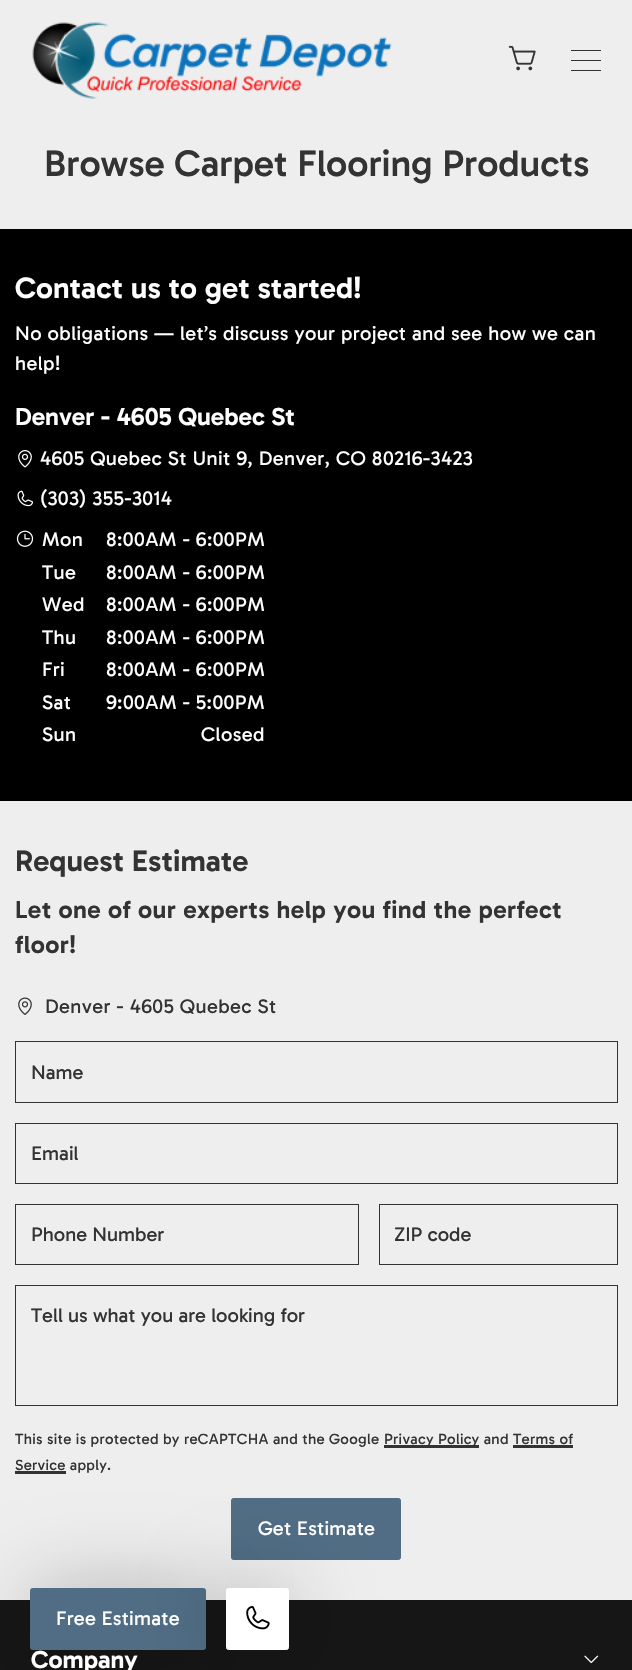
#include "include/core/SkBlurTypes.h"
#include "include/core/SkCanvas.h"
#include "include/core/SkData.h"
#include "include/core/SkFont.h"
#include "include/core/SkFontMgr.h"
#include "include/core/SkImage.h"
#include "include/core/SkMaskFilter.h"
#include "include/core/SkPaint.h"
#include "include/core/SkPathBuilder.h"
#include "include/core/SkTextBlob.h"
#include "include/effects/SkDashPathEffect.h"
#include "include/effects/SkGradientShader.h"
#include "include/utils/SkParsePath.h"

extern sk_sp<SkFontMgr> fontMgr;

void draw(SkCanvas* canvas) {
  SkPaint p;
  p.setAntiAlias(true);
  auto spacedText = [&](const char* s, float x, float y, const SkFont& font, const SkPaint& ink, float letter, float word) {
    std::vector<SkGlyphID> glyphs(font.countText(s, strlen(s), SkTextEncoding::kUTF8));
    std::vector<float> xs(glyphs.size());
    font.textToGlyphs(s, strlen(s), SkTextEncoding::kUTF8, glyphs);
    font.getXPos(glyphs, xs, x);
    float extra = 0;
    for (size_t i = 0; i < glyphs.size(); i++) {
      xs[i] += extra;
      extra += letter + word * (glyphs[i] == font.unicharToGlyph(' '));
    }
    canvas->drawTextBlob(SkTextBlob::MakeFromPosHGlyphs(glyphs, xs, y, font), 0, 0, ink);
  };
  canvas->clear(SkColorSetRGB(238, 238, 238));
  p.setColor(SK_ColorBLACK);
  canvas->drawRect(SkRect::MakeLTRB(0, 229, 632, 801), p);
  canvas->drawImageRect(SkImages::DeferredFromEncodedData(SkData::MakeFromFileName("images/1.png")), SkRect::MakeLTRB(18, 450, 32, 468), SkSamplingOptions());
  canvas->drawImageRect(SkImages::DeferredFromEncodedData(SkData::MakeFromFileName("images/2.png")), SkRect::MakeLTRB(17, 490, 34, 507), SkSamplingOptions());
  canvas->drawImageRect(SkImages::DeferredFromEncodedData(SkData::MakeFromFileName("images/3.png")), SkRect::MakeLTRB(16, 530, 34, 547), SkSamplingOptions());
  canvas->drawImageRect(SkImages::DeferredFromEncodedData(SkData::MakeFromFileName("images/4.png")), SkRect::MakeLTRB(18, 997, 32, 1015), SkSamplingOptions());
  p.setStyle(SkPaint::kStroke_Style);
  p.setStrokeWidth(1);
  p.setColor(SkColorSetRGB(51, 51, 51));
  canvas->drawRect(SkRect::MakeLTRB(15.5f, 1041.5f, 617.5f, 1102.5f), p);
  canvas->drawRect(SkRect::MakeLTRB(15.5f, 1123.5f, 617.5f, 1183.5f), p);
  canvas->drawRect(SkRect::MakeLTRB(15.5f, 1204.5f, 358.5f, 1264.5f), p);
  canvas->drawRect(SkRect::MakeLTRB(379.5f, 1204.5f, 617.5f, 1264.5f), p);
  canvas->drawRect(SkRect::MakeLTRB(15.5f, 1285.5f, 617.5f, 1405.5f), p);
  p.setStyle(SkPaint::kFill_Style);
  canvas->drawRect(SkRect::MakeLTRB(384, 1445, 479, 1448), p);
  canvas->drawRect(SkRect::MakeLTRB(513, 1445, 573, 1448), p);
  canvas->drawRect(SkRect::MakeLTRB(15, 1471, 66, 1474), p);
  p.setColor(SkColorSetRGB(80, 109, 133));
  canvas->drawRoundRect(SkRect::MakeLTRB(231.5f, 1498.5f, 400.5f, 1559.5f), 2, 2, p);
  p.setStyle(SkPaint::kStroke_Style);
  canvas->drawRoundRect(SkRect::MakeLTRB(231.5f, 1498.5f, 400.5f, 1559.5f), 2, 2, p);
  canvas->drawImageRect(SkImages::DeferredFromEncodedData(SkData::MakeFromFileName("images/5.png")), SkRect::MakeLTRB(32, 22, 392, 99), SkSamplingOptions());
  canvas->drawImageRect(SkImages::DeferredFromEncodedData(SkData::MakeFromFileName("images/6.png")), SkRect::MakeLTRB(508, 45, 536, 71), SkSamplingOptions());
  p.setStyle(SkPaint::kFill_Style);
  p.setColor(SkColorSetRGB(51, 51, 51));
  canvas->drawRect(SkRect::MakeLTRB(571, 60, 601, 61), p);
  canvas->drawRect(SkRect::MakeLTRB(571, 50, 601, 51), p);
  canvas->drawRect(SkRect::MakeLTRB(571, 70, 601, 71), p);
  p.setColor(SkColorSetRGB(22, 22, 22));
  canvas->drawRect(SkRect::MakeLTRB(0, 1600, 632, 1670), p);
  p.setColor(SkColorSetARGB(64, 0, 0, 0));
  p.setMaskFilter(SkMaskFilter::MakeBlur(kNormal_SkBlurStyle, 40));
  canvas->drawRoundRect(SkRect::MakeLTRB(30, 1588, 206, 1650), 2.5f, 2.5f, p);
  p.setMaskFilter(nullptr);
  p.setColor(SkColorSetRGB(80, 109, 133));
  canvas->drawRoundRect(SkRect::MakeLTRB(30.5f, 1588.5f, 205.5f, 1649.5f), 2, 2, p);
  p.setStyle(SkPaint::kStroke_Style);
  canvas->drawRoundRect(SkRect::MakeLTRB(30.5f, 1588.5f, 205.5f, 1649.5f), 2, 2, p);
  p.setStyle(SkPaint::kFill_Style);
  p.setColor(SkColorSetARGB(64, 0, 0, 0));
  p.setMaskFilter(SkMaskFilter::MakeBlur(kNormal_SkBlurStyle, 40));
  canvas->drawRoundRect(SkRect::MakeLTRB(226, 1588, 289, 1650), 2.5f, 2.5f, p);
  p.setMaskFilter(nullptr);
  p.setColor(SK_ColorWHITE);
  canvas->drawRoundRect(SkRect::MakeLTRB(226.5f, 1588.5f, 288.5f, 1649.5f), 2, 2, p);
  p.setStyle(SkPaint::kStroke_Style);
  canvas->drawRoundRect(SkRect::MakeLTRB(226.5f, 1588.5f, 288.5f, 1649.5f), 2, 2, p);
  canvas->drawImageRect(SkImages::DeferredFromEncodedData(SkData::MakeFromFileName("images/7.png")), SkRect::MakeLTRB(246, 1606, 270, 1630), SkSamplingOptions());
  canvas->drawImageRect(SkImages::DeferredFromEncodedData(SkData::MakeFromFileName("images/8.png")), SkRect::MakeLTRB(584, 1655, 599, 1664), SkSamplingOptions());
  SkFont font1(fontMgr->matchFamilyStyle("Gabarito", SkFontStyle(500, SkFontStyle::kNormal_Width, SkFontStyle::kUpright_Slant)), 37.5f);
  font1.setSubpixel(true);
  p.setStyle(SkPaint::kFill_Style);
  p.setColor(SkColorSetRGB(51, 51, 51));
  spacedText("Browse Carpet Flooring Products", 44, 176, font1, p, -0.1f, 0);
  SkFont font2(fontMgr->matchFamilyStyle("Gabarito", SkFontStyle(600, SkFontStyle::kNormal_Width, SkFontStyle::kUpright_Slant)), 30);
  font2.setSubpixel(true);
  p.setColor(SK_ColorWHITE);
  canvas->drawString("Contact us to get started!", 15, 298, font2, p);
  SkFont font3(fontMgr->matchFamilyStyle("Gabarito", SkFontStyle::Normal()), 20);
  font3.setSubpixel(true);
  spacedText("No obligations — let’s discuss your project and see how we can", 15, 340, font3, p, 0.4f, 0);
  spacedText("help!", 15, 370, font3, p, 0.4f, 0);
  SkFont font4(fontMgr->matchFamilyStyle("Gabarito", SkFontStyle(600, SkFontStyle::kNormal_Width, SkFontStyle::kUpright_Slant)), 25);
  font4.setSubpixel(true);
  canvas->drawString("Denver - 4605 Quebec St", 15, 425, font4, p);
  spacedText("4605 Quebec St Unit 9, Denver, CO 80216-3423", 40, 465, font3, p, 0.4f, 0);
  spacedText("(303) 355-3014", 40, 505, font3, p, 0.4f, 0);
  spacedText("Mon", 42, 546, font3, p, 0.4f, 0);
  spacedText("8:00AM - 6:00PM", 106, 546, font3, p, 0.4f, 0);
  spacedText("Tue", 42, 579, font3, p, 0.4f, 0);
  spacedText("8:00AM - 6:00PM", 106, 579, font3, p, 0.4f, 0);
  spacedText("Wed", 42, 611, font3, p, 0.4f, 0);
  spacedText("8:00AM - 6:00PM", 106, 611, font3, p, 0.4f, 0);
  spacedText("Thu", 42, 644, font3, p, 0.4f, 0);
  spacedText("8:00AM - 6:00PM", 106, 644, font3, p, 0.4f, 0);
  spacedText("Fri", 42, 676, font3, p, 0.4f, 0);
  spacedText("8:00AM - 6:00PM", 106, 676, font3, p, 0.4f, 0);
  spacedText("Sat", 42, 709, font3, p, 0.4f, 0);
  spacedText("9:00AM - 5:00PM", 106, 709, font3, p, 0.4f, 0);
  spacedText("Sun", 42, 741, font3, p, 0.4f, 0);
  spacedText("Closed", 201, 741, font3, p, 0.4f, 0);
  p.setColor(SkColorSetRGB(51, 51, 51));
  canvas->drawString("Request Estimate", 15, 871, font2, p);
  spacedText("Let one of our experts help you find the perfect", 15, 918, font4, p, 0.4f, 0);
  spacedText("floor!", 15, 953, font4, p, 0.4f, 0);
  spacedText("Denver - 4605 Quebec St", 45, 1013, font3, p, 0.4f, 0);
  canvas->drawString("Name", 31, 1079, font3, p);
  canvas->drawString("Email", 31, 1160, font3, p);
  canvas->drawString("Phone Number", 31, 1241, font3, p);
  canvas->drawString("ZIP code", 394, 1241, font3, p);
  canvas->drawString("Tell us what you are looking for", 31, 1322, font3, p);
  SkFont font5(fontMgr->matchFamilyStyle("Gabarito", SkFontStyle::Normal()), 15);
  font5.setSubpixel(true);
  spacedText("This site is protected by reCAPTCHA and the Google", 15, 1444, font5, p, 0.3f, 0);
  spacedText("Privacy Policy and Terms of", 384, 1444, font5, p, 0.3f, 0);
  spacedText("Service apply.", 15, 1470, font5, p, 0.3f, 0);
  p.setColor(SK_ColorWHITE);
  spacedText("Get Estimate", 258, 1535, font3, p, 0.25f, 0);
  spacedText("Free Estimate", 56, 1625, font3, p, 0.25f, 0);
  canvas->drawString("Company", 31, 1668, font4, p);
}
